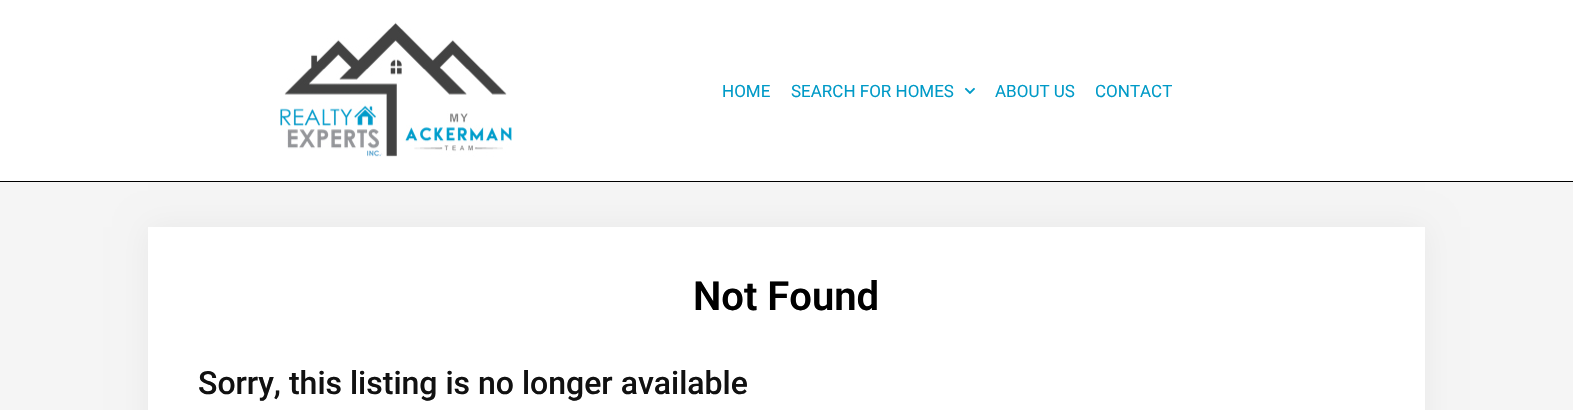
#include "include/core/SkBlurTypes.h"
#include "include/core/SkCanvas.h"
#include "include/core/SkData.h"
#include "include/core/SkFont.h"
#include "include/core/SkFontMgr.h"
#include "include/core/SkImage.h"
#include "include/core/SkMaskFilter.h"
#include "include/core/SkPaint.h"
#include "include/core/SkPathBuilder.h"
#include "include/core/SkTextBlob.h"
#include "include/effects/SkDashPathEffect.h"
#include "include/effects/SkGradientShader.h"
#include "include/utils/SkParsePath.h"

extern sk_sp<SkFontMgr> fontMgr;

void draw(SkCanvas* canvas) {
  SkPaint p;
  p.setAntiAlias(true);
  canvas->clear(SK_ColorWHITE);
  p.setColor(SkColorSetRGB(245, 245, 245));
  canvas->drawRect(SkRect::MakeLTRB(0, 182, 1573, 410), p);
  p.setColor(SkColorSetARGB(13, 0, 0, 0));
  p.setMaskFilter(SkMaskFilter::MakeBlur(kNormal_SkBlurStyle, 15));
  canvas->drawRect(SkRect::MakeLTRB(148, 227, 1425, 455), p);
  p.setMaskFilter(nullptr);
  p.setColor(SK_ColorBLACK);
  canvas->drawRect(SkRect::MakeLTRB(0, 181, 1573, 182), p);
  canvas->drawImageRect(SkImages::DeferredFromEncodedData(SkData::MakeFromFileName("images/1.png")), SkRect::MakeLTRB(280, 22, 512, 157), SkSamplingOptions());
  canvas->drawImageRect(SkImages::DeferredFromEncodedData(SkData::MakeFromFileName("images/2.png")), SkRect::MakeLTRB(964, 87, 975, 94), SkSamplingOptions());
  p.setColor(SK_ColorWHITE);
  canvas->drawRect(SkRect::MakeLTRB(148, 227, 1425, 410), p);
  SkFont font1(fontMgr->matchFamilyStyle("Roboto", SkFontStyle::Normal()), 17);
  font1.setSubpixel(true);
  p.setColor(SkColorSetRGB(0, 154, 199));
  canvas->drawString("HOME", 722, 97, font1, p);
  canvas->drawString("SEARCH FOR HOMES", 791, 97, font1, p);
  canvas->drawString("ABOUT US", 995, 97, font1, p);
  canvas->drawString("CONTACT", 1095, 97, font1, p);
  SkFont font2(fontMgr->matchFamilyStyle("Roboto", SkFontStyle(600, SkFontStyle::kNormal_Width, SkFontStyle::kUpright_Slant)), 40);
  font2.setSubpixel(true);
  p.setColor(SK_ColorBLACK);
  canvas->drawString("Not Found", 693, 310, font2, p);
  SkFont font3(fontMgr->matchFamilyStyle("Roboto", SkFontStyle(500, SkFontStyle::kNormal_Width, SkFontStyle::kUpright_Slant)), 32);
  font3.setSubpixel(true);
  p.setColor(SkColorSetRGB(17, 17, 17));
  canvas->drawString("Sorry, this listing is no longer available", 198, 394, font3, p);
}
